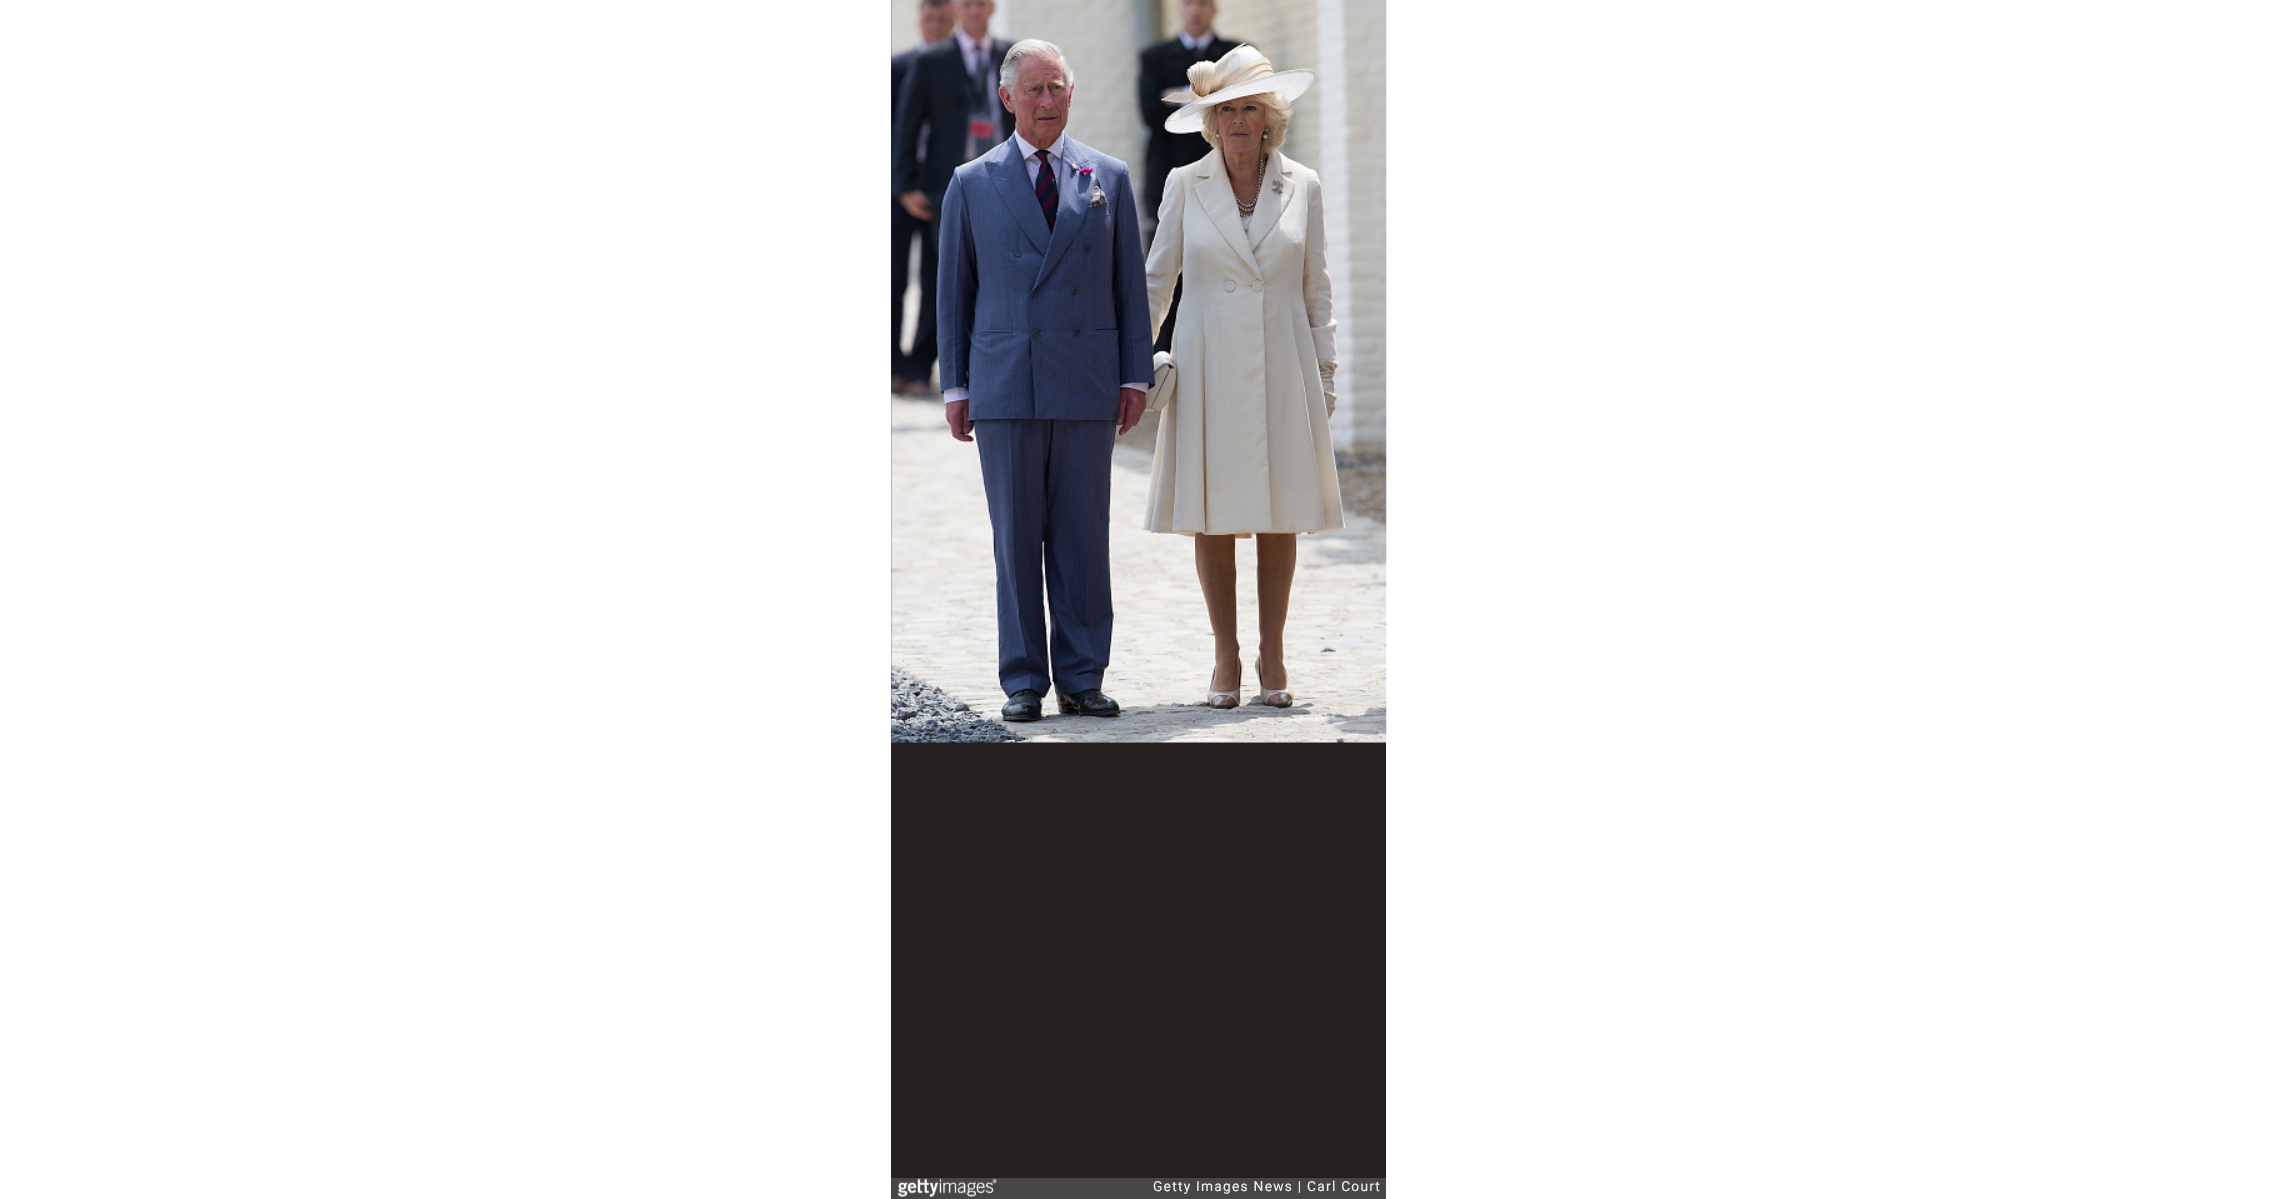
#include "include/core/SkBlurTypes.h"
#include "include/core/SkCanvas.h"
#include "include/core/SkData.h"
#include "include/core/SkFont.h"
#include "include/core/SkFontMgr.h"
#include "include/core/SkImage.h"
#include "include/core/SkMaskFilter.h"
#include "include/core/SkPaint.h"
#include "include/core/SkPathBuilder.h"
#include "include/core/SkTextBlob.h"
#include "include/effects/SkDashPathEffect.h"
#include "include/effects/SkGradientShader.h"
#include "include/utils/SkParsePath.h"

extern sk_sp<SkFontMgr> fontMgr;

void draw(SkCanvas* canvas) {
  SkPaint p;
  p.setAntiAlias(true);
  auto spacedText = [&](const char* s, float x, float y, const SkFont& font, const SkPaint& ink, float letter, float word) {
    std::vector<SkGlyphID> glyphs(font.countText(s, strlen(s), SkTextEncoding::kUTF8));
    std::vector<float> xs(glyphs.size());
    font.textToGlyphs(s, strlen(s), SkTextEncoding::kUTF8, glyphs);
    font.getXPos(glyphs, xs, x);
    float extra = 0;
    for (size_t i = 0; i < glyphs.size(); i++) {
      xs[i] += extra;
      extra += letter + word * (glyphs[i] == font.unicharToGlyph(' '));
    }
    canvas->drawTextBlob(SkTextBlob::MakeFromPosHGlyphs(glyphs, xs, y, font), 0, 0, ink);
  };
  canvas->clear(SK_ColorWHITE);
  p.setColor(SkColorSetRGB(37, 31, 32));
  canvas->drawRect(SkRect::MakeLTRB(891, 0, 1386, 1178), p);
  canvas->drawImageRect(SkImages::DeferredFromEncodedData(SkData::MakeFromFileName("images/1.png")), SkRect::MakeLTRB(891, 0, 1387, 743), SkSamplingOptions());
  p.setColor(SkColorSetRGB(71, 69, 69));
  canvas->drawRect(SkRect::MakeLTRB(891, 1178, 1386, 1199), p);
  canvas->drawImageRect(SkImages::DeferredFromEncodedData(SkData::MakeFromFileName("images/2.png")), SkRect::MakeLTRB(897, 1178, 997, 1197), SkSamplingOptions());
  SkFont font1(fontMgr->matchFamilyStyle("Roboto", SkFontStyle::Normal()), 13.75f);
  font1.setSubpixel(true);
  p.setColor(SkColorSetRGB(238, 238, 238));
  spacedText("Getty Images News | Carl Court", 1153, 1191, font1, p, 1.25f, 0);
}
